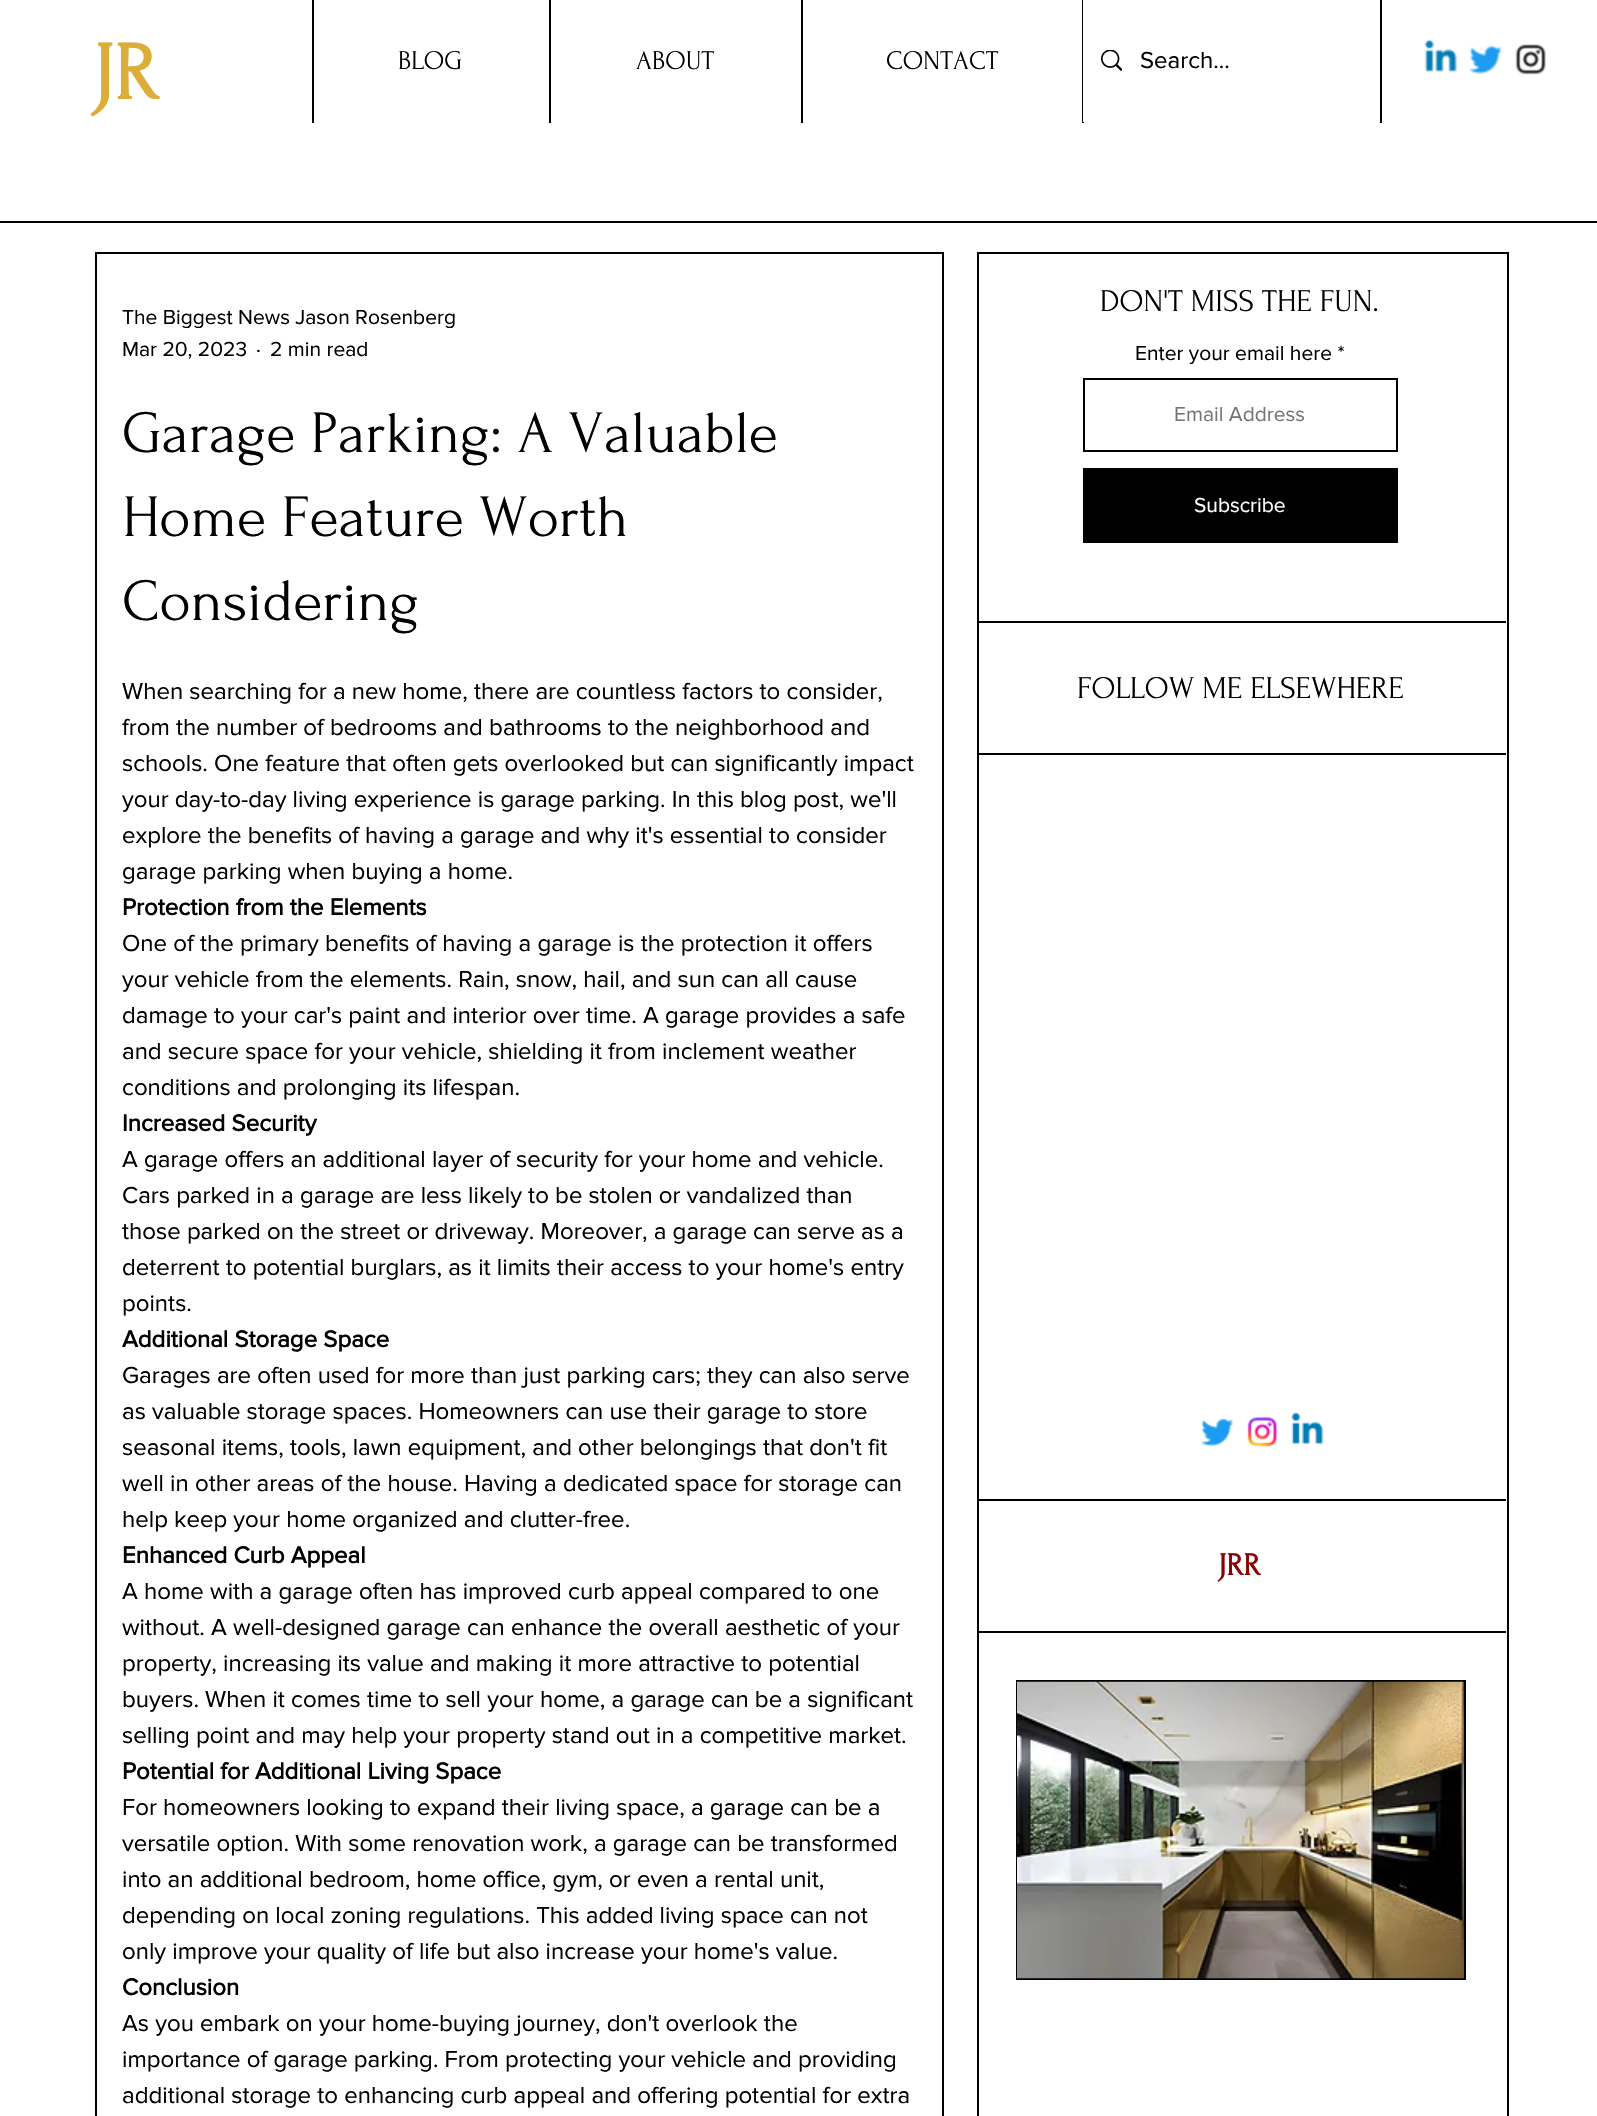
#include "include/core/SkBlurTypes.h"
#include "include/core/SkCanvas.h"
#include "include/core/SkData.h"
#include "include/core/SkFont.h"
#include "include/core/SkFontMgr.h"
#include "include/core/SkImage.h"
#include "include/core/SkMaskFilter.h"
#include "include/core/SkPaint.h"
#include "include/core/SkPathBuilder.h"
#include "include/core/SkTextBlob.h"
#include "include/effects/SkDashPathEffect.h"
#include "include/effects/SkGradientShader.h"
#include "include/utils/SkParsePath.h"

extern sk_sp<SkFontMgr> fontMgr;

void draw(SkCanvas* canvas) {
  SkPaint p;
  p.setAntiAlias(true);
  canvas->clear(SK_ColorWHITE);
  p.setColor(SK_ColorBLACK);
  canvas->drawRect(SkRect::MakeLTRB(312, 0, 314, 123), p);
  canvas->drawRect(SkRect::MakeLTRB(549, 0, 551, 123), p);
  canvas->drawRect(SkRect::MakeLTRB(801, 0, 803, 123), p);
  canvas->drawRect(SkRect::MakeLTRB(1082, 0, 1084, 123), p);
  p.setColor(SK_ColorWHITE);
  canvas->drawRect(SkRect::MakeLTRB(1083, 0, 1084, 122), p);
  canvas->drawImageRect(SkImages::DeferredFromEncodedData(SkData::MakeFromFileName("images/1.png")), SkRect::MakeLTRB(1101, 50, 1122, 71), SkSamplingOptions());
  p.setColor(SK_ColorBLACK);
  canvas->drawRect(SkRect::MakeLTRB(1380, 0, 1382, 123), p);
  canvas->drawImageRect(SkImages::DeferredFromEncodedData(SkData::MakeFromFileName("images/2.png")), SkRect::MakeLTRB(1424, 40, 1458, 73), SkSamplingOptions());
  canvas->drawImageRect(SkImages::DeferredFromEncodedData(SkData::MakeFromFileName("images/3.png")), SkRect::MakeLTRB(1469, 45, 1503, 75), SkSamplingOptions());
  canvas->drawImageRect(SkImages::DeferredFromEncodedData(SkData::MakeFromFileName("images/4.png")), SkRect::MakeLTRB(1515, 44, 1546, 75), SkSamplingOptions());
  canvas->drawRect(SkRect::MakeLTRB(0, 221, 1597, 223), p);
  p.setStyle(SkPaint::kStroke_Style);
  p.setStrokeWidth(2);
  canvas->drawRect(SkRect::MakeLTRB(96, 253, 943, 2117), p);
  canvas->drawRect(SkRect::MakeLTRB(978, 253, 1508, 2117), p);
  canvas->drawRect(SkRect::MakeLTRB(1084, 379, 1397, 451), p);
  p.setStyle(SkPaint::kFill_Style);
  canvas->drawRect(SkRect::MakeLTRB(1083, 468, 1398, 543), p);
  canvas->drawRect(SkRect::MakeLTRB(977, 621, 1506, 623), p);
  canvas->drawRect(SkRect::MakeLTRB(977, 753, 1506, 755), p);
  canvas->drawImageRect(SkImages::DeferredFromEncodedData(SkData::MakeFromFileName("images/5.png")), SkRect::MakeLTRB(1201, 1418, 1234, 1447), SkSamplingOptions());
  canvas->drawImageRect(SkImages::DeferredFromEncodedData(SkData::MakeFromFileName("images/6.png")), SkRect::MakeLTRB(1247, 1417, 1277, 1447), SkSamplingOptions());
  canvas->drawImageRect(SkImages::DeferredFromEncodedData(SkData::MakeFromFileName("images/7.png")), SkRect::MakeLTRB(1291, 1413, 1324, 1445), SkSamplingOptions());
  canvas->drawRect(SkRect::MakeLTRB(977, 1499, 1506, 1501), p);
  canvas->drawRect(SkRect::MakeLTRB(977, 1631, 1506, 1633), p);
  canvas->drawRect(SkRect::MakeLTRB(1016, 1680, 1466, 1980), p);
  canvas->drawImageRect(SkImages::DeferredFromEncodedData(SkData::MakeFromFileName("images/8.png")), SkRect::MakeLTRB(1017, 1681, 1464, 1979), SkSamplingOptions());
  SkFont font1(fontMgr->matchFamilyStyle("Forum", SkFontStyle::Bold()), 82);
  font1.setSubpixel(true);
  p.setColor(SkColorSetRGB(220, 173, 56));
  canvas->drawString("JR", 92, 99, font1, p);
  SkFont font2(fontMgr->matchFamilyStyle("Forum", SkFontStyle::Normal()), 27);
  font2.setSubpixel(true);
  p.setColor(SK_ColorBLACK);
  canvas->drawString("BLOG", 398, 69, font2, p);
  canvas->drawString("ABOUT", 636, 69, font2, p);
  canvas->drawString("CONTACT", 886, 69, font2, p);
  SkFont font3(fontMgr->matchFamilyStyle("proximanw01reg", SkFontStyle::Normal()), 24);
  font3.setSubpixel(true);
  canvas->drawString("Search...", 1140, 68, font3, p);
  SkFont font4(fontMgr->matchFamilyStyle("proximanw01reg", SkFontStyle::Normal()), 21);
  font4.setSubpixel(true);
  canvas->drawString("The Biggest News Jason Rosenberg", 122, 324, font4, p);
  canvas->drawString("Mar 20, 2023", 122, 356, font4, p);
  canvas->drawString("·", 256, 356, font4, p);
  canvas->drawString("2 min read", 270, 356, font4, p);
  SkFont font5(fontMgr->matchFamilyStyle("Forum", SkFontStyle::Normal()), 60);
  font5.setSubpixel(true);
  canvas->drawString("Garage Parking: A Valuable", 122, 452, font5, p);
  canvas->drawString("Home Feature Worth", 122, 536, font5, p);
  canvas->drawString("Considering", 122, 620, font5, p);
  canvas->drawString("When searching for a new home, there are countless factors to consider,", 122, 699, font3, p);
  canvas->drawString("from the number of bedrooms and bathrooms to the neighborhood and", 122, 735, font3, p);
  canvas->drawString("schools. One feature that often gets overlooked but can significantly impact", 122, 771, font3, p);
  canvas->drawString("your day-to-day living experience is garage parking. In this blog post, we'll", 122, 807, font3, p);
  canvas->drawString("explore the benefits of having a garage and why it's essential to consider", 122, 843, font3, p);
  canvas->drawString("garage parking when buying a home.", 122, 879, font3, p);
  SkFont font6(fontMgr->matchFamilyStyle("proximanw01reg", SkFontStyle::Bold()), 24);
  font6.setSubpixel(true);
  canvas->drawString("Protection from the Elements", 122, 915, font6, p);
  canvas->drawString("One of the primary benefits of having a garage is the protection it offers", 122, 951, font3, p);
  canvas->drawString("your vehicle from the elements. Rain, snow, hail, and sun can all cause", 122, 987, font3, p);
  canvas->drawString("damage to your car's paint and interior over time. A garage provides a safe", 122, 1023, font3, p);
  canvas->drawString("and secure space for your vehicle, shielding it from inclement weather", 122, 1059, font3, p);
  canvas->drawString("conditions and prolonging its lifespan.", 122, 1095, font3, p);
  canvas->drawString("Increased Security", 122, 1131, font6, p);
  canvas->drawString("A garage offers an additional layer of security for your home and vehicle.", 122, 1167, font3, p);
  canvas->drawString("Cars parked in a garage are less likely to be stolen or vandalized than", 122, 1203, font3, p);
  canvas->drawString("those parked on the street or driveway. Moreover, a garage can serve as a", 122, 1239, font3, p);
  canvas->drawString("deterrent to potential burglars, as it limits their access to your home's entry", 122, 1275, font3, p);
  canvas->drawString("points.", 122, 1311, font3, p);
  canvas->drawString("Additional Storage Space", 122, 1347, font6, p);
  canvas->drawString("Garages are often used for more than just parking cars; they can also serve", 122, 1383, font3, p);
  canvas->drawString("as valuable storage spaces. Homeowners can use their garage to store", 122, 1419, font3, p);
  canvas->drawString("seasonal items, tools, lawn equipment, and other belongings that don't fit", 122, 1455, font3, p);
  canvas->drawString("well in other areas of the house. Having a dedicated space for storage can", 122, 1491, font3, p);
  canvas->drawString("help keep your home organized and clutter-free.", 122, 1527, font3, p);
  canvas->drawString("Enhanced Curb Appeal", 122, 1563, font6, p);
  canvas->drawString("A home with a garage often has improved curb appeal compared to one", 122, 1599, font3, p);
  canvas->drawString("without. A well-designed garage can enhance the overall aesthetic of your", 122, 1635, font3, p);
  canvas->drawString("property, increasing its value and making it more attractive to potential", 122, 1671, font3, p);
  canvas->drawString("buyers. When it comes time to sell your home, a garage can be a significant", 122, 1707, font3, p);
  canvas->drawString("selling point and may help your property stand out in a competitive market.", 122, 1743, font3, p);
  canvas->drawString("Potential for Additional Living Space", 122, 1779, font6, p);
  canvas->drawString("For homeowners looking to expand their living space, a garage can be a", 122, 1815, font3, p);
  canvas->drawString("versatile option. With some renovation work, a garage can be transformed", 122, 1851, font3, p);
  canvas->drawString("into an additional bedroom, home office, gym, or even a rental unit,", 122, 1887, font3, p);
  canvas->drawString("depending on local zoning regulations. This added living space can not", 122, 1923, font3, p);
  canvas->drawString("only improve your quality of life but also increase your home's value.", 122, 1959, font3, p);
  canvas->drawString("Conclusion", 122, 1995, font6, p);
  canvas->drawString("As you embark on your home-buying journey, don't overlook the", 122, 2031, font3, p);
  canvas->drawString("importance of garage parking. From protecting your vehicle and providing", 122, 2067, font3, p);
  canvas->drawString("additional storage to enhancing curb appeal and offering potential for extra", 122, 2103, font3, p);
  SkFont font7(fontMgr->matchFamilyStyle("Forum", SkFontStyle::Normal()), 31.5f);
  font7.setSubpixel(true);
  canvas->drawString("DON'T MISS THE FUN.", 1100, 311, font7, p);
  canvas->drawString("Enter your email here *", 1135, 360, font4, p);
  p.setColor(SkColorSetRGB(117, 117, 117));
  canvas->drawString("Email Address", 1174, 421, font4, p);
  p.setColor(SK_ColorWHITE);
  canvas->drawString("Subscribe", 1194, 512, font4, p);
  p.setColor(SK_ColorBLACK);
  canvas->drawString("FOLLOW ME ELSEWHERE", 1077, 698, font7, p);
  SkFont font8(fontMgr->matchFamilyStyle("Forum", SkFontStyle::Bold()), 31.5f);
  font8.setSubpixel(true);
  p.setColor(SkColorSetRGB(139, 0, 0));
  canvas->drawString("JRR", 1218, 1575, font8, p);
}
